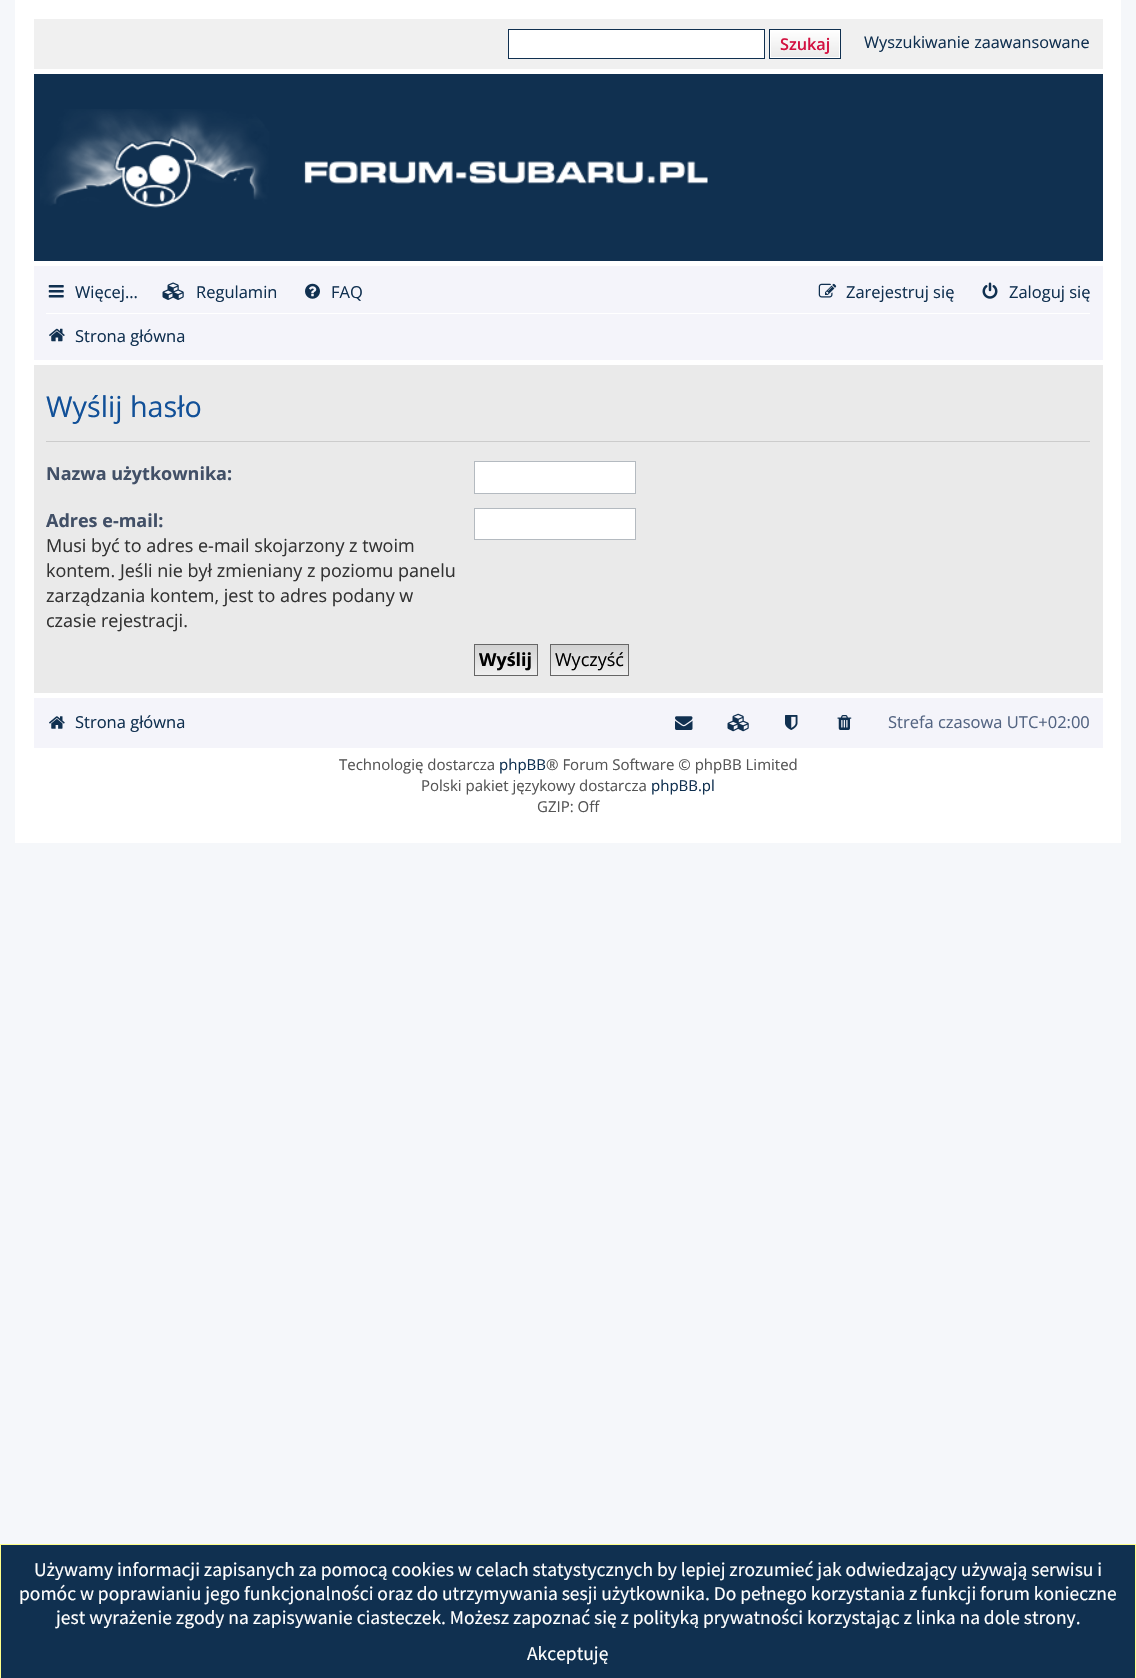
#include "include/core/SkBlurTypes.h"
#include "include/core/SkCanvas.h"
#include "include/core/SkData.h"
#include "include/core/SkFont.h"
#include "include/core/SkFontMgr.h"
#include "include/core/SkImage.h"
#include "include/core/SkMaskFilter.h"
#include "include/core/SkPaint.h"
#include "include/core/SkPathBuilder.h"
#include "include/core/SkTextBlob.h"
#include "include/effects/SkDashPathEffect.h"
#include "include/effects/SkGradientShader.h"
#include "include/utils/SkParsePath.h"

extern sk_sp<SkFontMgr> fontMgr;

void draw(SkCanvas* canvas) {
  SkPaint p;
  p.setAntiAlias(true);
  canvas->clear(SkColorSetRGB(245, 247, 250));
  p.setColor(SK_ColorWHITE);
  canvas->drawRect(SkRect::MakeLTRB(15, 0, 1121, 843), p);
  p.setColor(SkColorSetRGB(240, 240, 240));
  canvas->drawRect(SkRect::MakeLTRB(34, 19, 1103, 69), p);
  p.setColor(SK_ColorWHITE);
  canvas->drawRect(SkRect::MakeLTRB(508.5f, 29.5f, 764.5f, 58.5f), p);
  p.setStyle(SkPaint::kStroke_Style);
  p.setStrokeWidth(1);
  p.setColor(SkColorSetRGB(16, 48, 80));
  canvas->drawRect(SkRect::MakeLTRB(508.5f, 29.5f, 764.5f, 58.5f), p);
  p.setStyle(SkPaint::kFill_Style);
  {
    const SkColor colors[] = {SK_ColorWHITE, SkColorSetRGB(233, 233, 233)};
    const float stops[] = {0, 1};
    const SkPoint ends[] = {{805, 30}, {805, 58}};
    p.setShader(SkGradientShader::MakeLinear(ends, colors, stops, 2, SkTileMode::kClamp));
    p.setAlpha(255);
  }
  canvas->drawRect(SkRect::MakeLTRB(771, 31, 839, 57), p);
  p.setStyle(SkPaint::kStroke_Style);
  p.setShader(nullptr);
  p.setColor(SK_ColorWHITE);
  canvas->drawRect(SkRect::MakeLTRB(770.5f, 30.5f, 839.5f, 57.5f), p);
  p.setColor(SkColorSetRGB(16, 48, 80));
  canvas->drawRect(SkRect::MakeLTRB(769.5f, 29.5f, 840.5f, 58.5f), p);
  p.setStyle(SkPaint::kFill_Style);
  canvas->drawRect(SkRect::MakeLTRB(34, 74, 1103, 261), p);
  canvas->drawImageRect(SkImages::DeferredFromEncodedData(SkData::MakeFromFileName("images/1.png")), SkRect::MakeLTRB(40, 109, 708, 208), SkSamplingOptions());
  p.setColor(SkColorSetRGB(244, 244, 250));
  canvas->drawRect(SkRect::MakeLTRB(34, 266, 1103, 360), p);
  canvas->drawImageRect(SkImages::DeferredFromEncodedData(SkData::MakeFromFileName("images/2.png")), SkRect::MakeLTRB(48, 285, 64, 298), SkSamplingOptions());
  canvas->drawImageRect(SkImages::DeferredFromEncodedData(SkData::MakeFromFileName("images/3.png")), SkRect::MakeLTRB(162, 282, 184, 300), SkSamplingOptions());
  canvas->drawImageRect(SkImages::DeferredFromEncodedData(SkData::MakeFromFileName("images/4.png")), SkRect::MakeLTRB(305, 283, 320, 299), SkSamplingOptions());
  canvas->drawImageRect(SkImages::DeferredFromEncodedData(SkData::MakeFromFileName("images/5.png")), SkRect::MakeLTRB(818, 283, 837, 298), SkSamplingOptions());
  canvas->drawImageRect(SkImages::DeferredFromEncodedData(SkData::MakeFromFileName("images/6.png")), SkRect::MakeLTRB(982, 282, 998, 299), SkSamplingOptions());
  p.setColor(SK_ColorWHITE);
  canvas->drawRect(SkRect::MakeLTRB(46, 313, 1090, 314), p);
  canvas->drawImageRect(SkImages::DeferredFromEncodedData(SkData::MakeFromFileName("images/7.png")), SkRect::MakeLTRB(49, 328, 65, 342), SkSamplingOptions());
  p.setColor(SkColorSetRGB(234, 234, 234));
  canvas->drawRect(SkRect::MakeLTRB(34, 365, 1103, 693), p);
  p.setColor(SkColorSetRGB(204, 204, 204));
  canvas->drawRect(SkRect::MakeLTRB(46, 441, 1090, 442), p);
  p.setColor(SK_ColorWHITE);
  canvas->drawRect(SkRect::MakeLTRB(474.5f, 461.5f, 635.5f, 493.5f), p);
  p.setStyle(SkPaint::kStroke_Style);
  p.setColor(SkColorSetRGB(180, 186, 192));
  canvas->drawRect(SkRect::MakeLTRB(474.5f, 461.5f, 635.5f, 493.5f), p);
  p.setStyle(SkPaint::kFill_Style);
  p.setColor(SK_ColorWHITE);
  canvas->drawRect(SkRect::MakeLTRB(474.5f, 508.5f, 635.5f, 539.5f), p);
  p.setStyle(SkPaint::kStroke_Style);
  p.setColor(SkColorSetRGB(180, 186, 192));
  canvas->drawRect(SkRect::MakeLTRB(474.5f, 508.5f, 635.5f, 539.5f), p);
  p.setStyle(SkPaint::kFill_Style);
  {
    const SkColor colors[] = {SkColorSetRGB(210, 210, 210), SkColorSetRGB(239, 239, 239)};
    const float stops[] = {0, 1};
    const SkPoint ends[] = {{506, 645}, {506, 675}};
    p.setShader(SkGradientShader::MakeLinear(ends, colors, stops, 2, SkTileMode::kClamp));
    p.setAlpha(255);
  }
  canvas->drawRect(SkRect::MakeLTRB(475, 645, 537, 675), p);
  p.setStyle(SkPaint::kStroke_Style);
  p.setShader(nullptr);
  p.setColor(SkColorSetRGB(102, 102, 102));
  canvas->drawRect(SkRect::MakeLTRB(474.5f, 644.5f, 537.5f, 675.5f), p);
  p.setStyle(SkPaint::kFill_Style);
  {
    const SkColor colors[] = {SkColorSetRGB(210, 210, 210), SkColorSetRGB(239, 239, 239)};
    const float stops[] = {0, 1};
    const SkPoint ends[] = {{589, 645}, {589, 675}};
    p.setShader(SkGradientShader::MakeLinear(ends, colors, stops, 2, SkTileMode::kClamp));
    p.setAlpha(255);
  }
  canvas->drawRect(SkRect::MakeLTRB(551, 645, 628, 675), p);
  p.setStyle(SkPaint::kStroke_Style);
  p.setShader(nullptr);
  p.setColor(SkColorSetRGB(102, 102, 102));
  canvas->drawRect(SkRect::MakeLTRB(550.5f, 644.5f, 628.5f, 675.5f), p);
  p.setStyle(SkPaint::kFill_Style);
  p.setColor(SkColorSetRGB(244, 244, 250));
  canvas->drawRect(SkRect::MakeLTRB(34, 698, 1103, 748), p);
  canvas->drawImageRect(SkImages::DeferredFromEncodedData(SkData::MakeFromFileName("images/8.png")), SkRect::MakeLTRB(49, 716, 65, 729), SkSamplingOptions());
  canvas->drawImageRect(SkImages::DeferredFromEncodedData(SkData::MakeFromFileName("images/9.png")), SkRect::MakeLTRB(675, 716, 693, 730), SkSamplingOptions());
  canvas->drawImageRect(SkImages::DeferredFromEncodedData(SkData::MakeFromFileName("images/10.png")), SkRect::MakeLTRB(727, 713, 749, 732), SkSamplingOptions());
  canvas->drawImageRect(SkImages::DeferredFromEncodedData(SkData::MakeFromFileName("images/11.png")), SkRect::MakeLTRB(785, 715, 798, 730), SkSamplingOptions());
  canvas->drawImageRect(SkImages::DeferredFromEncodedData(SkData::MakeFromFileName("images/12.png")), SkRect::MakeLTRB(837, 715, 852, 730), SkSamplingOptions());
  p.setColor(SkColorSetRGB(16, 48, 80));
  canvas->drawRect(SkRect::MakeLTRB(0.5f, 1544.5f, 1135.5f, 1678.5f), p);
  p.setStyle(SkPaint::kStroke_Style);
  p.setColor(SkColorSetRGB(255, 255, 138));
  canvas->drawRect(SkRect::MakeLTRB(0.5f, 1544.5f, 1135.5f, 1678.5f), p);
  SkFont font1(fontMgr->matchFamilyStyle("Open Sans", SkFontStyle(600, SkFontStyle::kNormal_Width, SkFontStyle::kUpright_Slant)), 16.25f);
  font1.setSubpixel(true);
  p.setStyle(SkPaint::kFill_Style);
  p.setColor(SkColorSetRGB(211, 17, 65));
  canvas->drawString("Szukaj", 780, 50, font1, p);
  SkFont font2(fontMgr->matchFamilyStyle("Open Sans", SkFontStyle::Normal()), 16.25f);
  font2.setSubpixel(true);
  p.setColor(SkColorSetRGB(16, 48, 80));
  canvas->drawString("Wyszukiwanie zaawansowane", 864, 48, font2, p);
  SkFont font3(fontMgr->matchFamilyStyle("Open Sans", SkFontStyle::Normal()), 16.5f);
  font3.setSubpixel(true);
  canvas->drawString("Więcej…", 75, 298, font3, p);
  canvas->drawString("Regulamin", 196, 298, font3, p);
  canvas->drawString("FAQ", 331, 298, font3, p);
  canvas->drawString("Zarejestruj się", 846, 298, font3, p);
  canvas->drawString("Zaloguj się", 1009, 298, font3, p);
  canvas->drawString("Strona główna", 75, 342, font3, p);
  SkFont font4(fontMgr->matchFamilyStyle("Open Sans", SkFontStyle::Normal()), 28.75f);
  font4.setSubpixel(true);
  p.setColor(SkColorSetRGB(17, 80, 152));
  canvas->drawString("Wyślij hasło", 46, 417, font4, p);
  SkFont font5(fontMgr->matchFamilyStyle("Open Sans", SkFontStyle::Bold()), 18);
  font5.setSubpixel(true);
  p.setColor(SkColorSetRGB(66, 80, 103));
  canvas->drawString("Nazwa użytkownika:", 46, 480, font5, p);
  canvas->drawString("Adres e-mail:", 46, 527, font5, p);
  SkFont font6(fontMgr->matchFamilyStyle("Open Sans", SkFontStyle::Normal()), 18);
  font6.setSubpixel(true);
  p.setColor(SkColorSetRGB(51, 51, 51));
  canvas->drawString("Musi być to adres e-mail skojarzony z twoim", 46, 552, font6, p);
  canvas->drawString("kontem. Jeśli nie był zmieniany z poziomu panelu", 46, 577, font6, p);
  canvas->drawString("zarządzania kontem, jest to adres podany w", 46, 602, font6, p);
  canvas->drawString("czasie rejestracji.", 46, 627, font6, p);
  p.setColor(SK_ColorBLACK);
  canvas->drawString("Wyślij", 479, 666, font5, p);
  canvas->drawString("Wyczyść", 555, 666, font6, p);
  p.setColor(SkColorSetRGB(16, 48, 80));
  canvas->drawString("Strona główna", 75, 728, font3, p);
  p.setColor(SkColorSetRGB(83, 100, 130));
  canvas->drawString("Strefa czasowa UTC+02:00", 888, 728, font3, p);
  SkFont font7(fontMgr->matchFamilyStyle("Open Sans", SkFontStyle::Normal()), 15);
  font7.setSubpixel(true);
  p.setColor(SkColorSetRGB(85, 85, 85));
  canvas->drawString("Technologię dostarcza", 339, 770, font7, p);
  p.setColor(SkColorSetRGB(16, 48, 80));
  canvas->drawString("phpBB", 499, 770, font7, p);
  p.setColor(SkColorSetRGB(85, 85, 85));
  canvas->drawString("® Forum Software © phpBB Limited", 546, 770, font7, p);
  canvas->drawString("Polski pakiet językowy dostarcza", 421, 791, font7, p);
  p.setColor(SkColorSetRGB(16, 48, 80));
  canvas->drawString("phpBB.pl", 651, 791, font7, p);
  p.setColor(SkColorSetRGB(85, 85, 85));
  canvas->drawString("GZIP: Off", 537, 812, font7, p);
  SkFont font8(fontMgr->matchFamilyStyle("Source Sans Pro", SkFontStyle::Normal()), 19.5f);
  font8.setSubpixel(true);
  p.setColor(SK_ColorWHITE);
  canvas->drawString("Używamy informacji zapisanych za pomocą cookies w celach statystycznych by lepiej zrozumieć jak odwiedzający używają serwisu i", 34, 1576, font8, p);
  canvas->drawString("pomóc w poprawianiu jego funkcjonalności oraz do utrzymywania sesji użytkownika. Do pełnego korzystania z funkcji forum konieczne", 19, 1600, font8, p);
  canvas->drawString("jest wyrażenie zgody na zapisywanie ciasteczek. Możesz zapoznać się z polityką prywatności korzystając z linka na dole strony.", 56, 1624, font8, p);
  canvas->drawString("Akceptuję", 527, 1660, font8, p);
}
